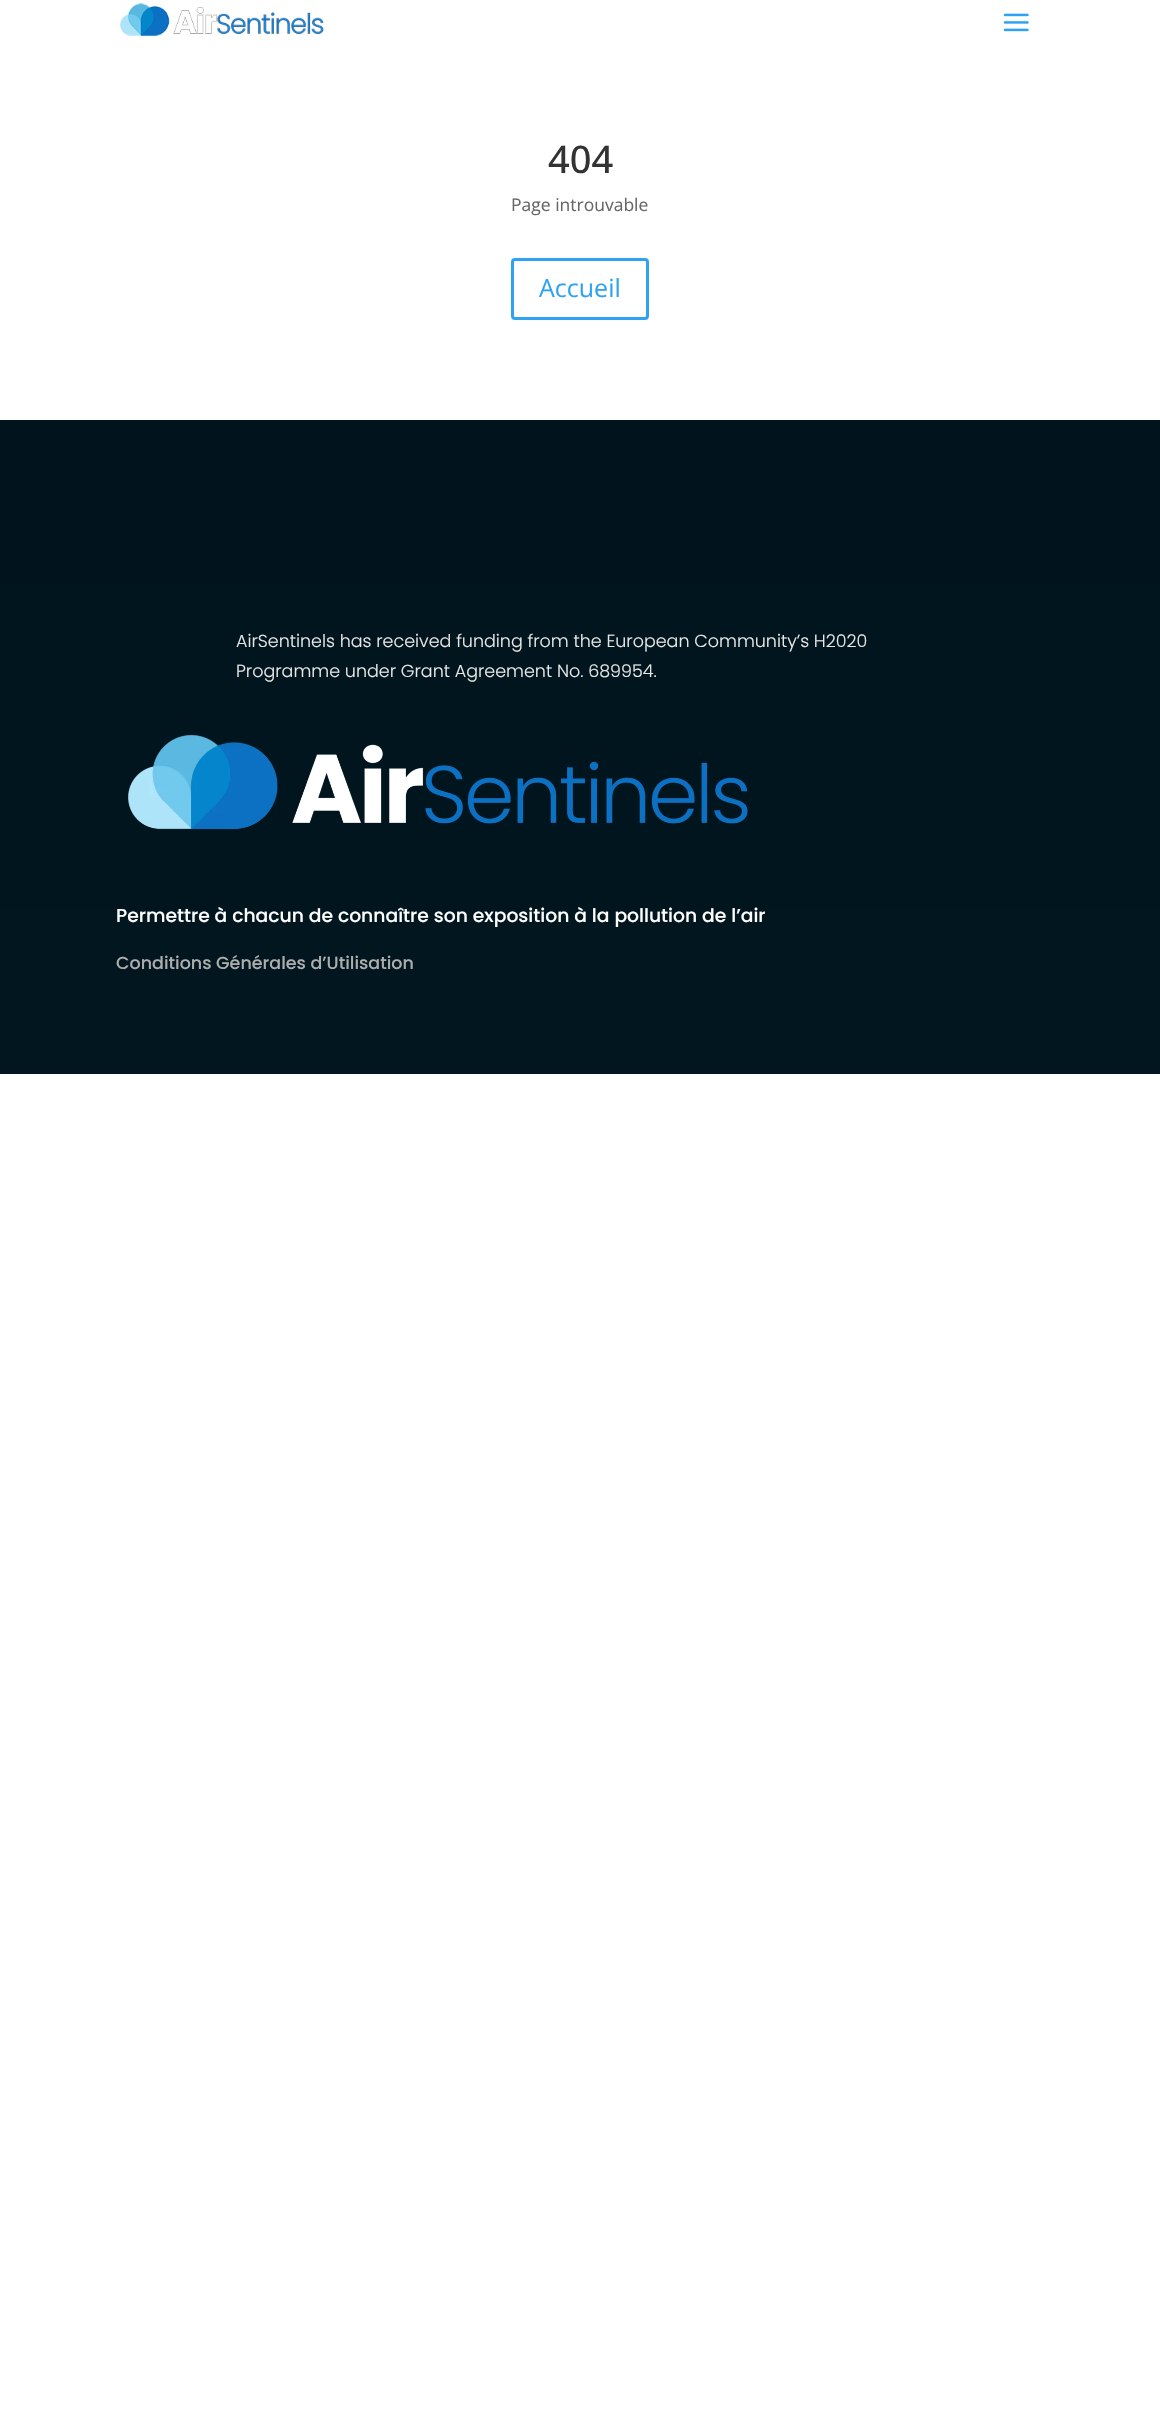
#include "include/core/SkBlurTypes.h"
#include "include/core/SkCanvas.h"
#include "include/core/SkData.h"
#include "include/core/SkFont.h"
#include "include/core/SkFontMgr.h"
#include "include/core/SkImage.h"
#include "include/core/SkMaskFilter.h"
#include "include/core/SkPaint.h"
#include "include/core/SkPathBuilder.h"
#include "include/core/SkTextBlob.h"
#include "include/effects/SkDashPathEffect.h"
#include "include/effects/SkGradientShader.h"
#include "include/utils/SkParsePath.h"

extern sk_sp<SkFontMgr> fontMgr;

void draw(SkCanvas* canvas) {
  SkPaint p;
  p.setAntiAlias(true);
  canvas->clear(SK_ColorWHITE);
  canvas->drawImageRect(SkImages::DeferredFromEncodedData(SkData::MakeFromFileName("images/1.png")), SkRect::MakeLTRB(120, 3, 324, 37), SkSamplingOptions());
  canvas->drawImageRect(SkImages::DeferredFromEncodedData(SkData::MakeFromFileName("images/2.png")), SkRect::MakeLTRB(1003, 13, 1029, 32), SkSamplingOptions());
  p.setStyle(SkPaint::kStroke_Style);
  p.setStrokeWidth(3);
  p.setColor(SkColorSetRGB(46, 163, 242));
  canvas->drawRoundRect(SkRect::MakeLTRB(512.5f, 259.5f, 647.5f, 318.5f), 2.5f, 2.5f, p);
  p.setStyle(SkPaint::kFill_Style);
  {
    const SkColor colors[] = {SkColorSetRGB(1, 20, 29), SkColorSetRGB(1, 22, 31)};
    const float stops[] = {0, 1};
    const SkPoint ends[] = {{580, 420}, {580, 1074}};
    p.setShader(SkGradientShader::MakeLinear(ends, colors, stops, 2, SkTileMode::kClamp));
    p.setAlpha(255);
  }
  canvas->drawRect(SkRect::MakeLTRB(0, 420, 1160, 1074), p);
  canvas->drawImageRect(SkImages::DeferredFromEncodedData(SkData::MakeFromFileName("images/3.png")), SkRect::MakeLTRB(127, 735, 748, 830), SkSamplingOptions());
  SkFont font1(fontMgr->matchFamilyStyle("Open Sans", SkFontStyle(500, SkFontStyle::kNormal_Width, SkFontStyle::kUpright_Slant)), 38);
  font1.setSubpixel(true);
  p.setShader(nullptr);
  p.setColor(SkColorSetRGB(51, 51, 51));
  canvas->drawString("404", 548, 173, font1, p);
  SkFont font2(fontMgr->matchFamilyStyle("Open Sans", SkFontStyle::Normal()), 17.5f);
  font2.setSubpixel(true);
  p.setColor(SkColorSetRGB(102, 102, 102));
  canvas->drawString("Page introuvable", 511, 211, font2, p);
  SkFont font3(fontMgr->matchFamilyStyle("Open Sans", SkFontStyle::Normal()), 25);
  font3.setSubpixel(true);
  p.setColor(SkColorSetRGB(46, 163, 242));
  canvas->drawString("Accueil", 539, 297, font3, p);
  SkFont font4(fontMgr->matchFamilyStyle("Poppins", SkFontStyle(300, SkFontStyle::kNormal_Width, SkFontStyle::kUpright_Slant)), 17.5f);
  font4.setSubpixel(true);
  p.setColor(SkColorSetRGB(232, 232, 232));
  canvas->drawString("AirSentinels has received funding from the European Community’s H2020", 236, 647, font4, p);
  canvas->drawString("Programme under Grant Agreement No. 689954.", 236, 677, font4, p);
  SkFont font5(fontMgr->matchFamilyStyle("Poppins", SkFontStyle(500, SkFontStyle::kNormal_Width, SkFontStyle::kUpright_Slant)), 18.75f);
  font5.setSubpixel(true);
  p.setColor(SK_ColorWHITE);
  canvas->drawString("Permettre à chacun de connaître son exposition à la pollution de l’air", 116, 922, font5, p);
  SkFont font6(fontMgr->matchFamilyStyle("Poppins", SkFontStyle(500, SkFontStyle::kNormal_Width, SkFontStyle::kUpright_Slant)), 17.5f);
  font6.setSubpixel(true);
  p.setColor(SkColorSetRGB(173, 173, 173));
  canvas->drawString("Conditions Générales d’Utilisation", 116, 969, font6, p);
}
